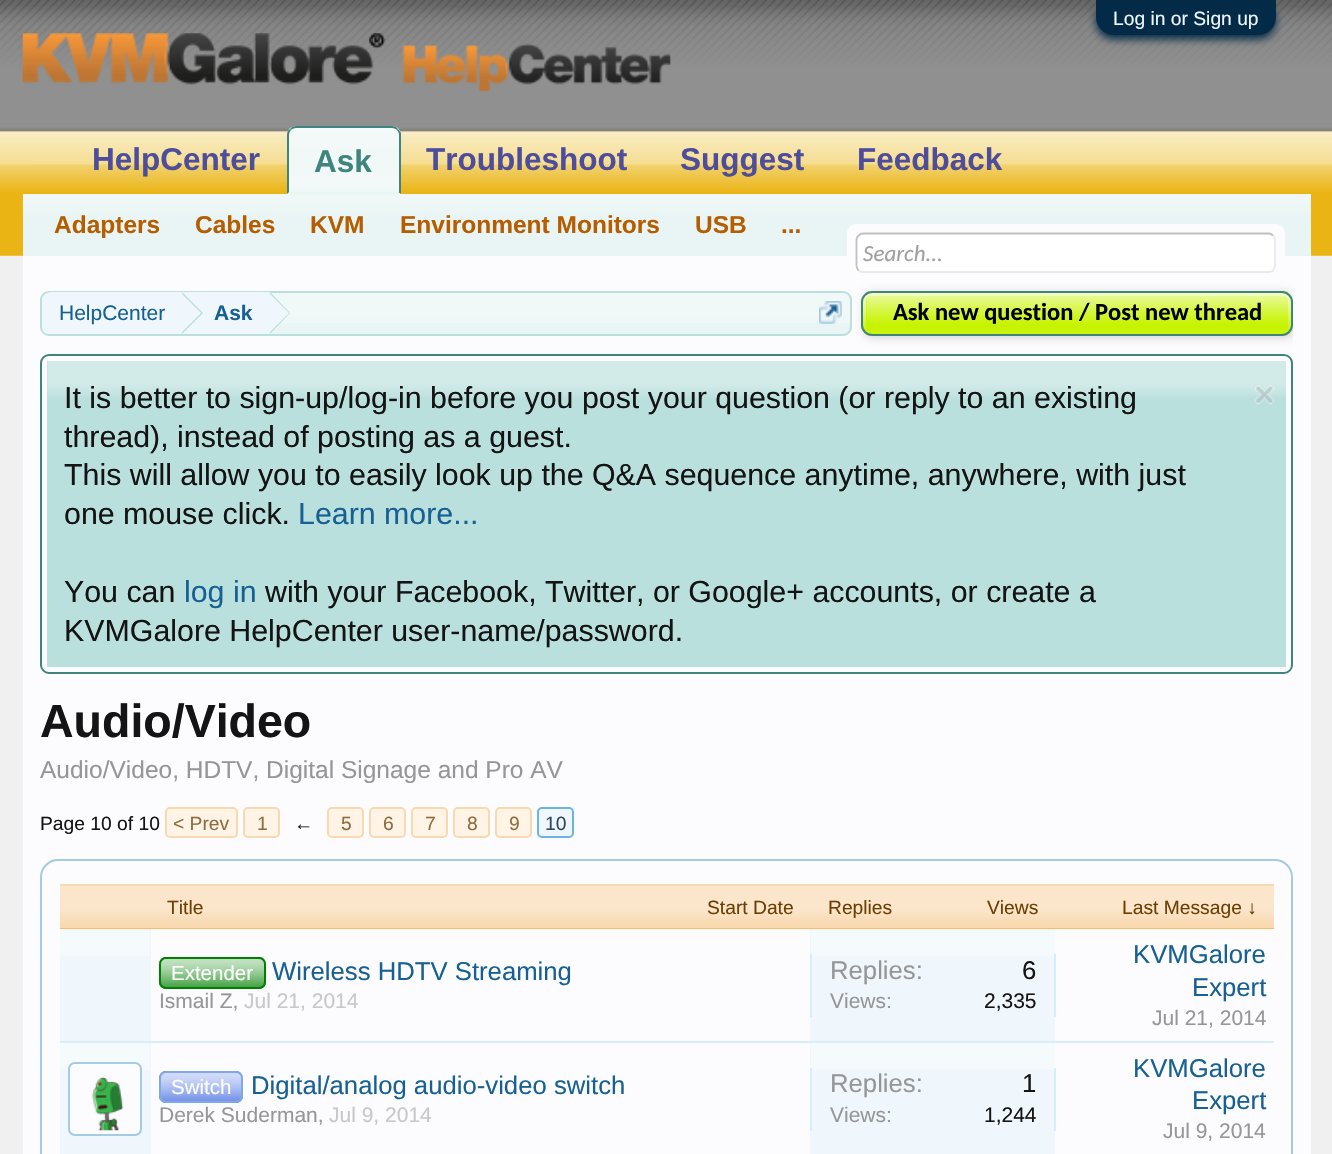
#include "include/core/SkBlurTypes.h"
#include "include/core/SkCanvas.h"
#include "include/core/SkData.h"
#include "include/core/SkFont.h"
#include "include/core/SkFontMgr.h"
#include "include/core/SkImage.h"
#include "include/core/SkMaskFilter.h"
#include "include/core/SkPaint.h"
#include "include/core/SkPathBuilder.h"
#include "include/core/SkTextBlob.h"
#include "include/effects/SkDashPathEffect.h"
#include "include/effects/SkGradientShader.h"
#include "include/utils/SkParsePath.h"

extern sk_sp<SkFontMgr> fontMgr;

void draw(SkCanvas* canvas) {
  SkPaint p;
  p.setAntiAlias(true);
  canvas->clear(SkColorSetRGB(240, 240, 240));
  canvas->drawImageRect(SkImages::DeferredFromEncodedData(SkData::MakeFromFileName("images/1.png")), SkRect::MakeLTRB(0, 0, 1332, 255), SkSamplingOptions());
  p.setColor(SkColorSetRGB(3, 42, 70));
  p.setMaskFilter(SkMaskFilter::MakeBlur(kNormal_SkBlurStyle, 4.5f));
  canvas->drawRoundRect(SkRect::MakeLTRB(1096, 4, 1276, 39), 17.5f, 17.5f, p);
  p.setMaskFilter(nullptr);
  canvas->drawPath(SkPathBuilder().moveTo(1096, 0).lineTo(1276, 0).lineTo(1276, 17.5f).cubicTo(1276, 27, 1268, 35, 1258.5f, 35).lineTo(1113.5f, 35).cubicTo(1104, 35, 1096, 27, 1096, 17.5f).close().detach(), p);
  p.setColor(SkColorSetRGB(235, 194, 75));
  canvas->drawRect(SkRect::MakeLTRB(0, 255, 1332, 256), p);
  canvas->drawImageRect(SkImages::DeferredFromEncodedData(SkData::MakeFromFileName("images/2.png")), SkRect::MakeLTRB(22, 33, 671, 91), SkSamplingOptions());
  p.setColor(SkColorSetRGB(233, 245, 244));
  canvas->drawPath(SkPathBuilder().moveTo(296, 126).lineTo(392, 126).cubicTo(397, 126, 401, 130, 401, 135).lineTo(401, 194).lineTo(287, 194).lineTo(287, 135).cubicTo(287, 130, 291, 126, 296, 126).close().detach(), p);
  canvas->drawImageRect(SkImages::DeferredFromEncodedData(SkData::MakeFromFileName("images/3.png")), SkRect::MakeLTRB(287, 127, 401, 194), SkSamplingOptions());
  p.setColor(SkColorSetRGB(63, 133, 125));
  canvas->drawPath(SkPathBuilder().moveTo(296, 126).cubicTo(294, 126, 291, 127, 290, 129).lineTo(291, 130).cubicTo(292, 129, 294, 128, 296, 128).lineTo(392, 128).cubicTo(394, 128, 396, 129, 397, 130).lineTo(398, 129).cubicTo(397, 127, 394, 126, 392, 126).close().detach(), p);
  canvas->drawPath(SkPathBuilder().moveTo(401, 194).lineTo(398, 192).lineTo(399, 192).lineTo(399, 135).cubicTo(399, 133, 398, 131, 397, 130).lineTo(398, 129).cubicTo(399, 130, 400, 131, 401, 133).close().detach(), p);
  p.setColor(SkColorSetRGB(233, 245, 244));
  canvas->drawPath(SkPathBuilder().moveTo(400, 194).lineTo(287, 194).lineTo(289, 192).lineTo(398, 192).close().detach(), p);
  p.setColor(SkColorSetRGB(63, 133, 125));
  canvas->drawPath(SkPathBuilder().moveTo(287, 135).lineTo(287, 194).lineTo(289, 192).lineTo(289, 135).cubicTo(289, 133, 290, 131, 291, 130).lineTo(290, 129).cubicTo(288, 130, 287, 132, 287, 135).close().detach(), p);
  p.setColor(SkColorSetRGB(233, 245, 244));
  canvas->drawRect(SkRect::MakeLTRB(23, 194, 1311, 256), p);
  canvas->drawImageRect(SkImages::DeferredFromEncodedData(SkData::MakeFromFileName("images/4.png")), SkRect::MakeLTRB(22, 194, 1311, 214), SkSamplingOptions());
  p.setColor(SkColorSetRGB(252, 252, 255));
  canvas->drawRect(SkRect::MakeLTRB(23, 256, 1311, 1154), p);
  canvas->drawRoundRect(SkRect::MakeLTRB(847, 224, 1285, 273), 9, 9, p);
  p.setColor(SK_ColorWHITE);
  canvas->drawRoundRect(SkRect::MakeLTRB(856, 233, 1276, 273), 7, 7, p);
  p.setStyle(SkPaint::kStroke_Style);
  p.setStrokeWidth(1.8f);
  p.setColor(SkColorSetRGB(233, 233, 233));
  canvas->drawPath(SkPathBuilder().moveTo(1273, 235.5f).cubicTo(1274, 236.5f, 1275, 238, 1275, 240).lineTo(1275, 266).cubicTo(1275, 267.5f, 1274, 269, 1273, 270.5f).cubicTo(1272, 271.5f, 1270.5f, 272, 1269, 272).lineTo(863, 272).cubicTo(861, 272, 859.5f, 271.5f, 858.5f, 270.5f).detach(), p);
  p.setColor(SkColorSetRGB(192, 192, 192));
  canvas->drawPath(SkPathBuilder().moveTo(858.5f, 270.5f).cubicTo(857.5f, 269, 856.5f, 267.5f, 856.5f, 266).lineTo(856.5f, 240).cubicTo(856.5f, 238, 857.5f, 236.5f, 858.5f, 235.5f).cubicTo(859.5f, 234.5f, 861, 233.5f, 863, 233.5f).lineTo(1269, 233.5f).cubicTo(1270.5f, 233.5f, 1272, 234.5f, 1273, 235.5f).detach(), p);
  p.setStyle(SkPaint::kFill_Style);
  p.setColor(SkColorSetRGB(233, 245, 244));
  canvas->drawRoundRect(SkRect::MakeLTRB(40, 291, 852, 336), 9, 9, p);
  canvas->drawImageRect(SkImages::DeferredFromEncodedData(SkData::MakeFromFileName("images/5.png")), SkRect::MakeLTRB(41, 292, 852, 323), SkSamplingOptions());
  p.setStyle(SkPaint::kStroke_Style);
  p.setStrokeWidth(2);
  p.setColor(SkColorSetRGB(186, 224, 221));
  canvas->drawRoundRect(SkRect::MakeLTRB(41, 292, 851, 335), 8, 8, p);
  canvas->save();
  canvas->clipPath(SkPathBuilder().moveTo(49, 292).lineTo(844, 292).cubicTo(848, 292, 851, 295, 851, 299).lineTo(851, 327).cubicTo(851, 331, 848, 334, 844, 334).lineTo(49, 334).cubicTo(45, 334, 42, 331, 42, 327).lineTo(42, 299).cubicTo(42, 295, 45, 292, 49, 292).close().detach(), true);
  p.setStyle(SkPaint::kFill_Style);
  p.setColor(SkColorSetRGB(240, 247, 252));
  canvas->drawPath(SkPathBuilder().moveTo(51, 292).lineTo(182, 292).lineTo(182, 336).lineTo(51, 336).cubicTo(46, 336, 42, 332, 42, 327).lineTo(42, 301).cubicTo(42, 296, 46, 292, 51, 292).close().detach(), p);
  canvas->restore();
  canvas->drawRect(SkRect::MakeLTRB(182, 292, 270, 334), p);
  p.setColor(SkColorSetRGB(186, 224, 221));
  canvas->drawPath(SkPathBuilder().moveTo(182, 334).lineTo(182, 292).lineTo(203, 313).close().detach(), p);
  p.setColor(SkColorSetRGB(240, 247, 252));
  canvas->drawPath(SkPathBuilder().moveTo(180, 334).lineTo(180, 292).lineTo(201, 313).close().detach(), p);
  p.setColor(SkColorSetRGB(186, 224, 221));
  canvas->drawPath(SkPathBuilder().moveTo(270, 334).lineTo(270, 292).lineTo(290, 313).close().detach(), p);
  p.setColor(SkColorSetRGB(240, 247, 252));
  canvas->drawPath(SkPathBuilder().moveTo(268, 334).lineTo(268, 292).lineTo(289, 313).close().detach(), p);
  canvas->drawImageRect(SkImages::DeferredFromEncodedData(SkData::MakeFromFileName("images/6.png")), SkRect::MakeLTRB(819, 301, 842, 324), SkSamplingOptions());
  canvas->save();
  canvas->clipRect(SkRect::MakeLTRB(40, 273, 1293, 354));
  p.setColor(SkColorSetARGB(38, 0, 0, 0));
  p.setMaskFilter(SkMaskFilter::MakeBlur(kNormal_SkBlurStyle, 4.5f));
  canvas->drawRoundRect(SkRect::MakeLTRB(863, 292, 1295, 338), 11, 11, p);
  p.setMaskFilter(nullptr);
  canvas->restore();
  p.setColor(SkColorSetRGB(199, 243, 1));
  canvas->drawRoundRect(SkRect::MakeLTRB(861, 291, 1293, 336), 11, 11, p);
  canvas->drawImageRect(SkImages::DeferredFromEncodedData(SkData::MakeFromFileName("images/7.png")), SkRect::MakeLTRB(861, 292, 1293, 335), SkSamplingOptions());
  p.setStyle(SkPaint::kStroke_Style);
  p.setColor(SkColorSetRGB(63, 133, 125));
  canvas->drawRoundRect(SkRect::MakeLTRB(862, 292, 1292, 335), 10, 10, p);
  p.setStyle(SkPaint::kFill_Style);
  p.setColor(SkColorSetRGB(199, 243, 1));
  canvas->drawRoundRect(SkRect::MakeLTRB(866, 296, 1288, 331), 5, 5, p);
  canvas->drawImageRect(SkImages::DeferredFromEncodedData(SkData::MakeFromFileName("images/8.png")), SkRect::MakeLTRB(866, 296, 1288, 324), SkSamplingOptions());
  p.setStyle(SkPaint::kStroke_Style);
  p.setColor(SkColorSetRGB(63, 133, 125));
  canvas->drawRoundRect(SkRect::MakeLTRB(41, 355, 1292, 673), 8, 8, p);
  p.setStyle(SkPaint::kFill_Style);
  p.setColor(SkColorSetRGB(186, 224, 221));
  canvas->drawRect(SkRect::MakeLTRB(47, 361, 1286, 667), p);
  canvas->drawImageRect(SkImages::DeferredFromEncodedData(SkData::MakeFromFileName("images/9.png")), SkRect::MakeLTRB(47, 361, 1286, 398), SkSamplingOptions());
  canvas->drawImageRect(SkImages::DeferredFromEncodedData(SkData::MakeFromFileName("images/10.png")), SkRect::MakeLTRB(1254, 385, 1275, 405), SkSamplingOptions());
  p.setColor(SkColorSetRGB(255, 244, 229));
  canvas->drawRoundRect(SkRect::MakeLTRB(166, 808, 237, 837), 4, 4, p);
  p.setStyle(SkPaint::kStroke_Style);
  p.setColor(SkColorSetRGB(249, 217, 176));
  canvas->drawRoundRect(SkRect::MakeLTRB(166, 808, 237, 837), 4, 4, p);
  p.setStyle(SkPaint::kFill_Style);
  p.setColor(SkColorSetRGB(255, 244, 229));
  canvas->drawRoundRect(SkRect::MakeLTRB(244, 808, 279, 837), 4, 4, p);
  p.setStyle(SkPaint::kStroke_Style);
  p.setColor(SkColorSetRGB(249, 217, 176));
  canvas->drawRoundRect(SkRect::MakeLTRB(244, 808, 279, 837), 4, 4, p);
  p.setStyle(SkPaint::kFill_Style);
  p.setColor(SkColorSetRGB(255, 244, 229));
  canvas->drawRoundRect(SkRect::MakeLTRB(328, 808, 363, 837), 4, 4, p);
  p.setStyle(SkPaint::kStroke_Style);
  p.setColor(SkColorSetRGB(249, 217, 176));
  canvas->drawRoundRect(SkRect::MakeLTRB(328, 808, 363, 837), 4, 4, p);
  p.setStyle(SkPaint::kFill_Style);
  p.setColor(SkColorSetRGB(255, 244, 229));
  canvas->drawRoundRect(SkRect::MakeLTRB(370, 808, 405, 837), 4, 4, p);
  p.setStyle(SkPaint::kStroke_Style);
  p.setColor(SkColorSetRGB(249, 217, 176));
  canvas->drawRoundRect(SkRect::MakeLTRB(370, 808, 405, 837), 4, 4, p);
  p.setStyle(SkPaint::kFill_Style);
  p.setColor(SkColorSetRGB(255, 244, 229));
  canvas->drawRoundRect(SkRect::MakeLTRB(412, 808, 447, 837), 4, 4, p);
  p.setStyle(SkPaint::kStroke_Style);
  p.setColor(SkColorSetRGB(249, 217, 176));
  canvas->drawRoundRect(SkRect::MakeLTRB(412, 808, 447, 837), 4, 4, p);
  p.setStyle(SkPaint::kFill_Style);
  p.setColor(SkColorSetRGB(255, 244, 229));
  canvas->drawRoundRect(SkRect::MakeLTRB(454, 808, 489, 837), 4, 4, p);
  p.setStyle(SkPaint::kStroke_Style);
  p.setColor(SkColorSetRGB(249, 217, 176));
  canvas->drawRoundRect(SkRect::MakeLTRB(454, 808, 489, 837), 4, 4, p);
  p.setStyle(SkPaint::kFill_Style);
  p.setColor(SkColorSetRGB(255, 244, 229));
  canvas->drawRoundRect(SkRect::MakeLTRB(496, 808, 531, 837), 4, 4, p);
  p.setStyle(SkPaint::kStroke_Style);
  p.setColor(SkColorSetRGB(249, 217, 176));
  canvas->drawRoundRect(SkRect::MakeLTRB(496, 808, 531, 837), 4, 4, p);
  p.setStyle(SkPaint::kFill_Style);
  p.setColor(SkColorSetRGB(240, 247, 252));
  canvas->drawRoundRect(SkRect::MakeLTRB(538, 808, 573, 837), 4, 4, p);
  p.setStyle(SkPaint::kStroke_Style);
  p.setColor(SkColorSetRGB(108, 178, 228));
  canvas->drawRoundRect(SkRect::MakeLTRB(538, 808, 573, 837), 4, 4, p);
  p.setColor(SkColorSetRGB(165, 202, 228));
  canvas->drawRoundRect(SkRect::MakeLTRB(41, 860, 1292, 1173), 17, 17, p);
  p.setStyle(SkPaint::kFill_Style);
  p.setColor(SkColorSetRGB(249, 217, 176));
  canvas->drawRect(SkRect::MakeLTRB(60, 884, 1274, 928), p);
  canvas->drawImageRect(SkImages::DeferredFromEncodedData(SkData::MakeFromFileName("images/11.png")), SkRect::MakeLTRB(60, 886, 1274, 923), SkSamplingOptions());
  p.setColor(SkColorSetRGB(249, 188, 109));
  canvas->drawRect(SkRect::MakeLTRB(60, 928, 1274, 929), p);
  p.setColor(SkColorSetRGB(215, 237, 252));
  canvas->drawRect(SkRect::MakeLTRB(60, 1041, 1274, 1043), p);
  p.setColor(SkColorSetRGB(240, 247, 252));
  canvas->drawRect(SkRect::MakeLTRB(60, 929, 151, 1041), p);
  canvas->drawImageRect(SkImages::DeferredFromEncodedData(SkData::MakeFromFileName("images/12.png")), SkRect::MakeLTRB(60, 930, 150, 956), SkSamplingOptions());
  p.setColor(SkColorSetRGB(0, 128, 0));
  canvas->drawRoundRect(SkRect::MakeLTRB(159, 957, 266, 989), 7, 7, p);
  canvas->drawImageRect(SkImages::DeferredFromEncodedData(SkData::MakeFromFileName("images/13.png")), SkRect::MakeLTRB(159, 959, 266, 989), SkSamplingOptions());
  p.setStyle(SkPaint::kStroke_Style);
  canvas->drawRoundRect(SkRect::MakeLTRB(160, 958, 265, 988), 6, 6, p);
  p.setStyle(SkPaint::kFill_Style);
  p.setColor(SkColorSetRGB(240, 247, 252));
  canvas->drawRect(SkRect::MakeLTRB(810, 929, 1055, 1041), p);
  canvas->drawImageRect(SkImages::DeferredFromEncodedData(SkData::MakeFromFileName("images/14.png")), SkRect::MakeLTRB(811, 930, 1055, 956), SkSamplingOptions());
  p.setColor(SkColorSetRGB(215, 237, 252));
  canvas->drawRect(SkRect::MakeLTRB(1054, 954, 1056, 1017), p);
  canvas->drawRect(SkRect::MakeLTRB(810, 954, 812, 1017), p);
  p.setColor(SkColorSetRGB(240, 247, 252));
  canvas->drawRect(SkRect::MakeLTRB(60, 1043, 151, 1154), p);
  canvas->drawImageRect(SkImages::DeferredFromEncodedData(SkData::MakeFromFileName("images/15.png")), SkRect::MakeLTRB(60, 1043, 150, 1070), SkSamplingOptions());
  p.setColor(SkColorSetRGB(252, 252, 255));
  canvas->drawRoundRect(SkRect::MakeLTRB(69, 1063, 141, 1135), 6, 6, p);
  p.setStyle(SkPaint::kStroke_Style);
  p.setColor(SkColorSetRGB(165, 202, 228));
  canvas->drawRoundRect(SkRect::MakeLTRB(69, 1063, 141, 1135), 6, 6, p);
  canvas->drawImageRect(SkImages::DeferredFromEncodedData(SkData::MakeFromFileName("images/16.png")), SkRect::MakeLTRB(91, 1076, 124, 1131), SkSamplingOptions());
  p.setStyle(SkPaint::kFill_Style);
  p.setColor(SkColorSetRGB(65, 105, 225));
  canvas->drawRoundRect(SkRect::MakeLTRB(159, 1071, 243, 1103), 7, 7, p);
  canvas->drawImageRect(SkImages::DeferredFromEncodedData(SkData::MakeFromFileName("images/17.png")), SkRect::MakeLTRB(159, 1072, 243, 1103), SkSamplingOptions());
  p.setStyle(SkPaint::kStroke_Style);
  p.setColor(SkColorSetRGB(129, 169, 225));
  canvas->drawRoundRect(SkRect::MakeLTRB(160, 1072, 242, 1102), 6, 6, p);
  p.setStyle(SkPaint::kFill_Style);
  p.setColor(SkColorSetRGB(240, 247, 252));
  canvas->drawRect(SkRect::MakeLTRB(810, 1043, 1055, 1154), p);
  canvas->drawImageRect(SkImages::DeferredFromEncodedData(SkData::MakeFromFileName("images/18.png")), SkRect::MakeLTRB(811, 1043, 1055, 1070), SkSamplingOptions());
  p.setColor(SkColorSetRGB(215, 237, 252));
  canvas->drawRect(SkRect::MakeLTRB(1054, 1068, 1056, 1131), p);
  canvas->drawRect(SkRect::MakeLTRB(810, 1068, 812, 1131), p);
  SkFont font1(fontMgr->matchFamilyStyle("Liberation Sans", SkFontStyle::Normal()), 19.25f);
  font1.setSubpixel(true);
  p.setColor(SkColorSetRGB(240, 247, 252));
  canvas->drawString("Log in or Sign up", 1113, 25, font1, p);
  SkFont font2(fontMgr->matchFamilyStyle("Liberation Sans", SkFontStyle::Bold()), 31.5f);
  font2.setSubpixel(true);
  p.setColor(SkColorSetRGB(77, 77, 156));
  canvas->drawString("HelpCenter", 92, 170, font2, p);
  canvas->drawString("Troubleshoot", 426, 170, font2, p);
  canvas->drawString("Suggest", 680, 170, font2, p);
  canvas->drawString("Feedback", 857, 170, font2, p);
  p.setColor(SkColorSetRGB(63, 133, 125));
  canvas->drawString("Ask", 314, 172, font2, p);
  SkFont font3(fontMgr->matchFamilyStyle("Liberation Sans", SkFontStyle::Bold()), 24.5f);
  font3.setSubpixel(true);
  p.setColor(SkColorSetRGB(181, 94, 1));
  canvas->drawString("Adapters", 54, 233, font3, p);
  canvas->drawString("Cables", 195, 233, font3, p);
  canvas->drawString("KVM", 310, 233, font3, p);
  canvas->drawString("Environment Monitors", 400, 233, font3, p);
  canvas->drawString("USB", 695, 233, font3, p);
  canvas->drawString("...", 781, 233, font3, p);
  SkFont font4(fontMgr->matchFamilyStyle("Carlito", SkFontStyle::Italic()), 23);
  font4.setSubpixel(true);
  p.setColor(SkColorSetRGB(160, 160, 160));
  canvas->drawString("Search...", 863, 261, font4, p);
  SkFont font5(fontMgr->matchFamilyStyle("Liberation Sans", SkFontStyle::Normal()), 21);
  font5.setSubpixel(true);
  p.setColor(SkColorSetRGB(23, 96, 147));
  canvas->drawString("HelpCenter", 59, 320, font5, p);
  SkFont font6(fontMgr->matchFamilyStyle("Liberation Sans", SkFontStyle::Bold()), 21);
  font6.setSubpixel(true);
  canvas->drawString("Ask", 214, 320, font6, p);
  SkFont font7(fontMgr->matchFamilyStyle("Carlito", SkFontStyle::Bold()), 24.5f);
  font7.setSubpixel(true);
  p.setColor(SK_ColorBLACK);
  canvas->drawString("Ask new question / Post new thread", 893, 320, font7, p);
  SkFont font8(fontMgr->matchFamilyStyle("Liberation Sans", SkFontStyle::Normal()), 30.35f);
  font8.setSubpixel(true);
  p.setColor(SkColorSetRGB(20, 20, 20));
  canvas->drawString("It is better to sign-up/log-in before you post your question (or reply to an existing", 64, 408, font8, p);
  canvas->drawString("thread), instead of posting as a guest.", 64, 447, font8, p);
  canvas->drawString("This will allow you to easily look up the Q&A sequence anytime, anywhere, with just", 64, 485, font8, p);
  canvas->drawString("one mouse click.", 64, 524, font8, p);
  p.setColor(SkColorSetRGB(23, 96, 147));
  canvas->drawString("Learn more...", 298, 524, font8, p);
  p.setColor(SkColorSetRGB(20, 20, 20));
  canvas->drawString("You can", 64, 602, font8, p);
  p.setColor(SkColorSetRGB(23, 96, 147));
  canvas->drawString("log in", 184, 602, font8, p);
  p.setColor(SkColorSetRGB(20, 20, 20));
  canvas->drawString("with your Facebook, Twitter, or Google+ accounts, or create a", 265, 602, font8, p);
  canvas->drawString("KVMGalore HelpCenter user-name/password.", 64, 641, font8, p);
  SkFont font9(fontMgr->matchFamilyStyle("Liberation Sans", SkFontStyle::Bold()), 46.5f);
  font9.setSubpixel(true);
  canvas->drawString("Audio/Video", 40, 737, font9, p);
  SkFont font10(fontMgr->matchFamilyStyle("Liberation Sans", SkFontStyle::Normal()), 24.5f);
  font10.setSubpixel(true);
  p.setColor(SkColorSetRGB(150, 150, 150));
  canvas->drawString("Audio/Video, HDTV, Digital Signage and Pro AV", 40, 778, font10, p);
  p.setColor(SkColorSetRGB(20, 20, 20));
  canvas->drawString("Page 10 of 10", 40, 830, font1, p);
  p.setColor(SkColorSetRGB(143, 108, 63));
  canvas->drawString("< Prev", 173, 830, font1, p);
  canvas->drawString("1", 257, 830, font1, p);
  p.setColor(SkColorSetRGB(20, 20, 20));
  canvas->drawString("←", 294, 830, font1, p);
  p.setColor(SkColorSetRGB(143, 108, 63));
  canvas->drawString("5", 341, 830, font1, p);
  canvas->drawString("6", 383, 830, font1, p);
  canvas->drawString("7", 425, 830, font1, p);
  canvas->drawString("8", 467, 830, font1, p);
  canvas->drawString("9", 509, 830, font1, p);
  p.setColor(SkColorSetRGB(43, 72, 92));
  canvas->drawString("10", 545, 830, font1, p);
  p.setColor(SkColorSetRGB(109, 63, 3));
  canvas->drawString("Title", 167, 914, font1, p);
  canvas->drawString("Start Date", 707, 914, font1, p);
  canvas->drawString("Replies", 828, 914, font1, p);
  canvas->drawString("Views", 987, 914, font1, p);
  canvas->drawString("Last Message ↓", 1122, 914, font1, p);
  SkFont font11(fontMgr->matchFamilyStyle("Liberation Sans", SkFontStyle::Normal()), 20.5f);
  font11.setSubpixel(true);
  p.setColor(SK_ColorWHITE);
  canvas->drawString("Extender", 171, 980, font11, p);
  SkFont font12(fontMgr->matchFamilyStyle("Liberation Sans", SkFontStyle::Normal()), 25.7f);
  font12.setSubpixel(true);
  p.setColor(SkColorSetRGB(23, 96, 147));
  canvas->drawString("Wireless HDTV Streaming", 272, 980, font12, p);
  p.setColor(SkColorSetRGB(150, 150, 150));
  canvas->drawString("Ismail Z,", 159, 1008, font5, p);
  p.setColor(SkColorSetRGB(200, 200, 200));
  canvas->drawString("Jul 21, 2014", 244, 1008, font5, p);
  p.setColor(SkColorSetRGB(150, 150, 150));
  canvas->drawString("Replies:", 830, 979, font12, p);
  p.setColor(SkColorSetRGB(20, 20, 20));
  canvas->drawString("6", 1022, 979, font12, p);
  p.setColor(SkColorSetRGB(150, 150, 150));
  canvas->drawString("Views:", 830, 1008, font5, p);
  p.setColor(SkColorSetRGB(20, 20, 20));
  canvas->drawString("2,335", 984, 1008, font5, p);
  p.setColor(SkColorSetRGB(23, 96, 147));
  canvas->drawString("KVMGalore", 1133, 963, font12, p);
  canvas->drawString("Expert", 1192, 996, font12, p);
  p.setColor(SkColorSetRGB(150, 150, 150));
  canvas->drawString("Jul 21, 2014", 1152, 1025, font5, p);
  p.setColor(SK_ColorWHITE);
  canvas->drawString("Switch", 171, 1094, font11, p);
  p.setColor(SkColorSetRGB(23, 96, 147));
  canvas->drawString("Digital/analog audio-video switch", 251, 1094, font12, p);
  p.setColor(SkColorSetRGB(150, 150, 150));
  canvas->drawString("Derek Suderman,", 159, 1122, font5, p);
  p.setColor(SkColorSetRGB(200, 200, 200));
  canvas->drawString("Jul 9, 2014", 329, 1122, font5, p);
  p.setColor(SkColorSetRGB(150, 150, 150));
  canvas->drawString("Replies:", 830, 1092, font12, p);
  p.setColor(SkColorSetRGB(20, 20, 20));
  canvas->drawString("1", 1022, 1092, font12, p);
  p.setColor(SkColorSetRGB(150, 150, 150));
  canvas->drawString("Views:", 830, 1122, font5, p);
  p.setColor(SkColorSetRGB(20, 20, 20));
  canvas->drawString("1,244", 984, 1122, font5, p);
  p.setColor(SkColorSetRGB(23, 96, 147));
  canvas->drawString("KVMGalore", 1133, 1077, font12, p);
  canvas->drawString("Expert", 1192, 1109, font12, p);
  p.setColor(SkColorSetRGB(150, 150, 150));
  canvas->drawString("Jul 9, 2014", 1163, 1138, font5, p);
}
